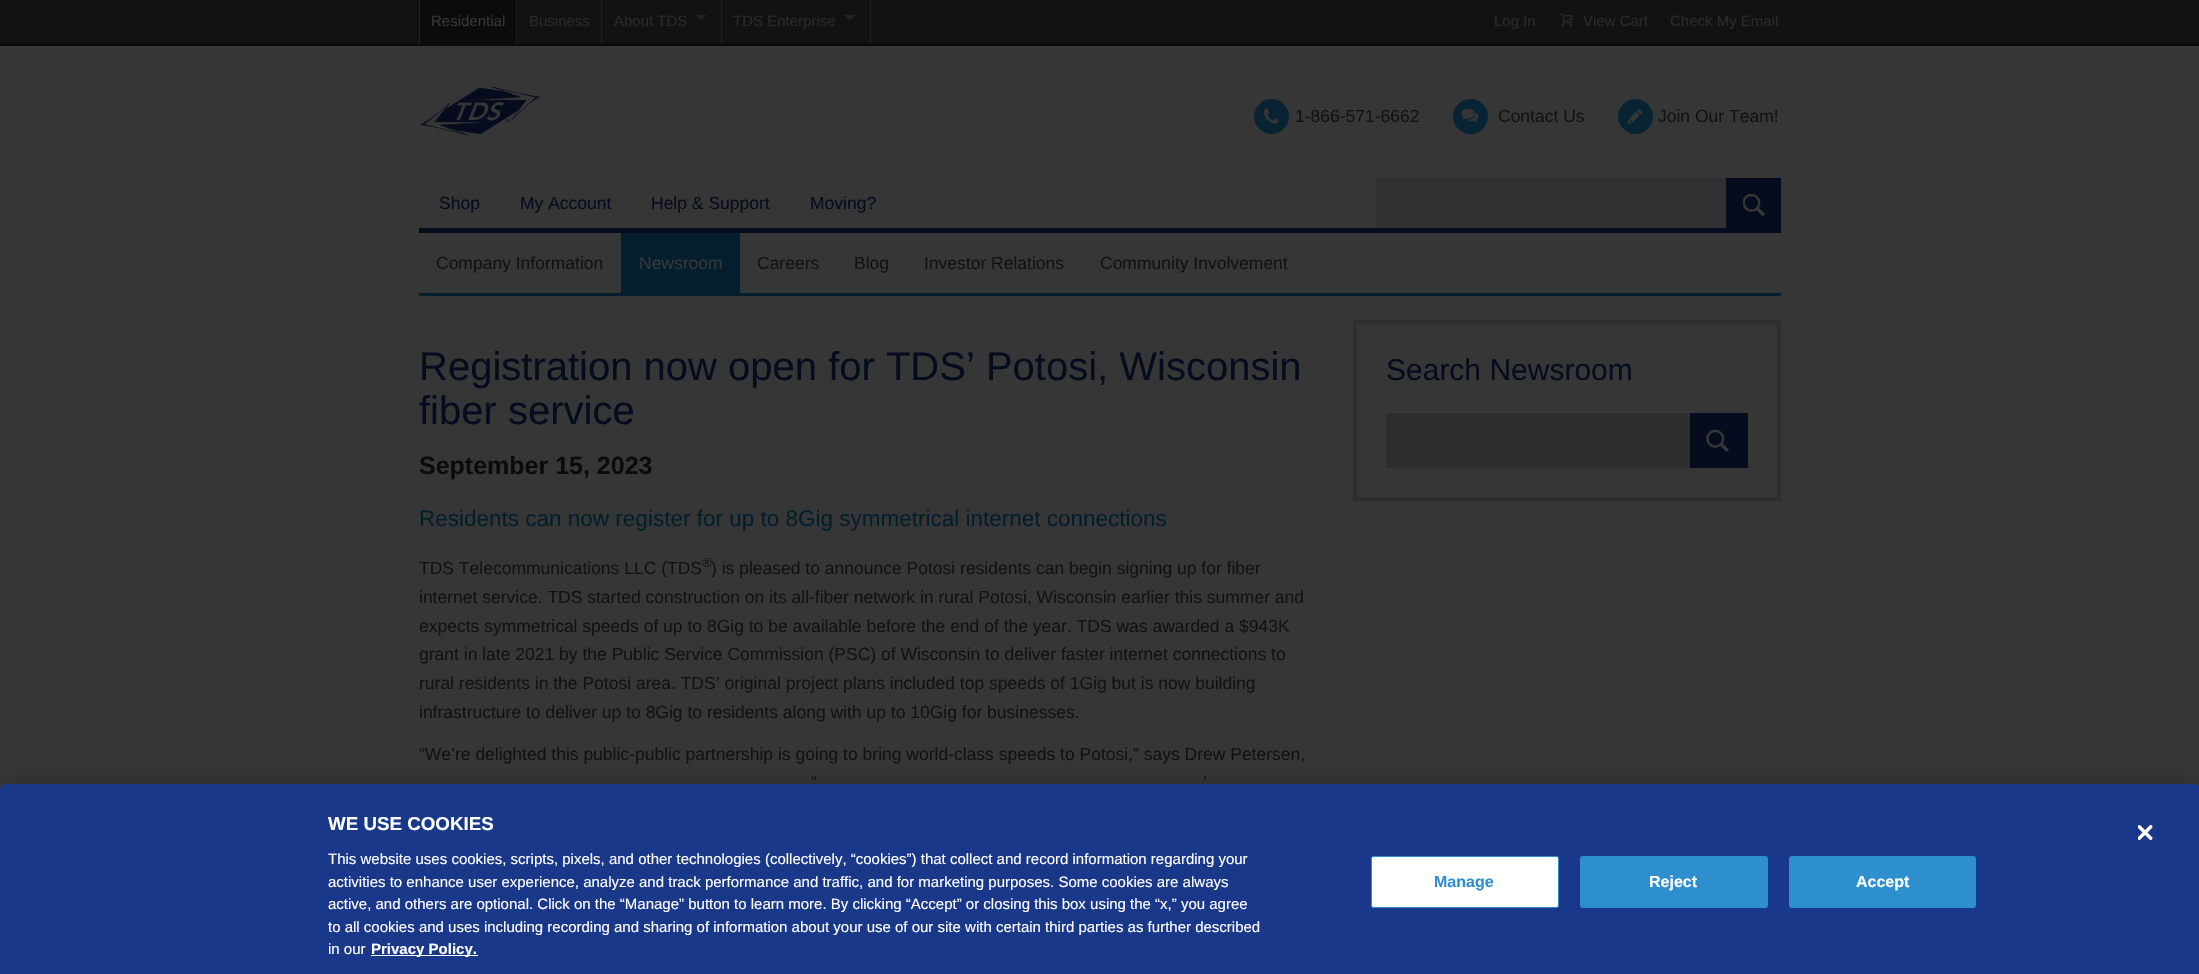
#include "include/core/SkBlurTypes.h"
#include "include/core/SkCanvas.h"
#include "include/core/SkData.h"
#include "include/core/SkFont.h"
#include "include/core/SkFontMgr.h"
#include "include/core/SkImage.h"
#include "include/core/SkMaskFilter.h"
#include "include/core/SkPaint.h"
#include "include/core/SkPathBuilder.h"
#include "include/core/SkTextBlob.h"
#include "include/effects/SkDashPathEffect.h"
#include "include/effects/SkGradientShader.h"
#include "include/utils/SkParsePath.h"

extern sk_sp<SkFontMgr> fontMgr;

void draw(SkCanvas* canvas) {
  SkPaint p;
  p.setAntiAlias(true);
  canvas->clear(SkColorSetRGB(54, 54, 54));
  p.setColor(SkColorSetRGB(18, 18, 18));
  canvas->drawRect(SkRect::MakeLTRB(0, 0, 2199, 43), p);
  p.setColor(SkColorSetRGB(11, 11, 11));
  canvas->drawRect(SkRect::MakeLTRB(0, 43, 2199, 46), p);
  canvas->drawRect(SkRect::MakeLTRB(420, 0, 518, 43), p);
  p.setColor(SkColorSetRGB(32, 32, 32));
  canvas->drawRect(SkRect::MakeLTRB(516, 0, 517, 44), p);
  canvas->drawRect(SkRect::MakeLTRB(419, 0, 420, 44), p);
  canvas->drawRect(SkRect::MakeLTRB(601, 0, 602, 44), p);
  canvas->drawRect(SkRect::MakeLTRB(721, 0, 722, 44), p);
  p.setColor(SkColorSetRGB(34, 34, 34));
  canvas->drawPath(SkPathBuilder().moveTo(701, 20).lineTo(695.5f, 15).lineTo(707, 15).close().detach(), p);
  p.setColor(SkColorSetRGB(32, 32, 32));
  canvas->drawRect(SkRect::MakeLTRB(870, 0, 871, 44), p);
  p.setColor(SkColorSetRGB(34, 34, 34));
  canvas->drawPath(SkPathBuilder().moveTo(850, 20).lineTo(844, 15).lineTo(856, 15).close().detach(), p);
  canvas->drawImageRect(SkImages::DeferredFromEncodedData(SkData::MakeFromFileName("images/1.png")), SkRect::MakeLTRB(1560, 14, 1573, 26), SkSamplingOptions());
  canvas->drawImageRect(SkImages::DeferredFromEncodedData(SkData::MakeFromFileName("images/2.png")), SkRect::MakeLTRB(420, 86, 540, 136), SkSamplingOptions());
  p.setColor(SkColorSetRGB(8, 36, 51));
  canvas->drawCircle(1271.5f, 116.5f, 17.5f, p);
  canvas->drawImageRect(SkImages::DeferredFromEncodedData(SkData::MakeFromFileName("images/3.png")), SkRect::MakeLTRB(1264, 109, 1279, 124), SkSamplingOptions());
  canvas->drawCircle(1470.5f, 116.5f, 17.5f, p);
  canvas->drawImageRect(SkImages::DeferredFromEncodedData(SkData::MakeFromFileName("images/4.png")), SkRect::MakeLTRB(1461, 109, 1479, 123), SkSamplingOptions());
  canvas->drawCircle(1635.5f, 116.5f, 17.5f, p);
  canvas->drawImageRect(SkImages::DeferredFromEncodedData(SkData::MakeFromFileName("images/5.png")), SkRect::MakeLTRB(1628, 109, 1643, 124), SkSamplingOptions());
  p.setColor(SkColorSetRGB(5, 12, 29));
  canvas->drawRect(SkRect::MakeLTRB(419, 228, 1726, 233), p);
  p.setColor(SkColorSetRGB(49, 49, 51));
  canvas->drawRect(SkRect::MakeLTRB(1376, 178, 1726, 228), p);
  p.setColor(SkColorSetRGB(5, 12, 29));
  canvas->drawRect(SkRect::MakeLTRB(1726, 178, 1781, 233), p);
  canvas->drawImageRect(SkImages::DeferredFromEncodedData(SkData::MakeFromFileName("images/6.png")), SkRect::MakeLTRB(1743, 194, 1765, 216), SkSamplingOptions());
  p.setColor(SkColorSetRGB(3, 30, 44));
  canvas->drawRect(SkRect::MakeLTRB(419, 293, 1781, 296), p);
  canvas->drawRect(SkRect::MakeLTRB(621, 233, 740, 293), p);
  p.setStyle(SkPaint::kStroke_Style);
  p.setStrokeWidth(4);
  p.setColor(SkColorSetRGB(46, 46, 46));
  canvas->drawRect(SkRect::MakeLTRB(1355, 322, 1779, 499), p);
  p.setStyle(SkPaint::kFill_Style);
  canvas->drawRect(SkRect::MakeLTRB(1386, 413, 1690, 468), p);
  p.setColor(SkColorSetRGB(5, 12, 29));
  canvas->drawRect(SkRect::MakeLTRB(1690, 413, 1748, 468), p);
  canvas->drawImageRect(SkImages::DeferredFromEncodedData(SkData::MakeFromFileName("images/7.png")), SkRect::MakeLTRB(1706, 429, 1729, 452), SkSamplingOptions());
  p.setColor(SkColorSetARGB(51, 0, 0, 0));
  p.setMaskFilter(SkMaskFilter::MakeBlur(kNormal_SkBlurStyle, 11));
  canvas->drawRoundRect(SkRect::MakeLTRB(0, 784, 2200, 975), 6, 6, p);
  p.setMaskFilter(nullptr);
  p.setColor(SkColorSetRGB(25, 56, 138));
  canvas->drawPath(SkPathBuilder().moveTo(6, 784).lineTo(2194, 784).cubicTo(2197.5f, 784, 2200, 786.5f, 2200, 790).lineTo(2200, 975).lineTo(0, 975).lineTo(0, 790).cubicTo(0, 786.5f, 2.5f, 784, 6, 784).close().detach(), p);
  p.setColor(SK_ColorWHITE);
  canvas->drawRect(SkRect::MakeLTRB(371, 955, 478, 956), p);
  canvas->drawRoundRect(SkRect::MakeLTRB(1371.5f, 856.5f, 1558.5f, 907.5f), 2, 2, p);
  p.setStyle(SkPaint::kStroke_Style);
  p.setStrokeWidth(1);
  p.setColor(SkColorSetRGB(46, 143, 207));
  canvas->drawRoundRect(SkRect::MakeLTRB(1371.5f, 856.5f, 1558.5f, 907.5f), 2, 2, p);
  p.setStyle(SkPaint::kFill_Style);
  canvas->drawRoundRect(SkRect::MakeLTRB(1580.5f, 856.5f, 1767.5f, 907.5f), 2, 2, p);
  p.setStyle(SkPaint::kStroke_Style);
  canvas->drawRoundRect(SkRect::MakeLTRB(1580.5f, 856.5f, 1767.5f, 907.5f), 2, 2, p);
  p.setStyle(SkPaint::kFill_Style);
  canvas->drawRoundRect(SkRect::MakeLTRB(1789.5f, 856.5f, 1975.5f, 907.5f), 2, 2, p);
  p.setStyle(SkPaint::kStroke_Style);
  canvas->drawRoundRect(SkRect::MakeLTRB(1789.5f, 856.5f, 1975.5f, 907.5f), 2, 2, p);
  canvas->drawImageRect(SkImages::DeferredFromEncodedData(SkData::MakeFromFileName("images/8.png")), SkRect::MakeLTRB(2138, 825, 2153, 840), SkSamplingOptions());
  SkFont font1(fontMgr->matchFamilyStyle("Liberation Sans", SkFontStyle::Normal()), 15);
  font1.setSubpixel(true);
  p.setStyle(SkPaint::kFill_Style);
  p.setColor(SkColorSetRGB(54, 54, 54));
  canvas->drawString("Residential", 431, 26, font1, p);
  p.setColor(SkColorSetRGB(42, 42, 42));
  canvas->drawString("Business", 529, 26, font1, p);
  canvas->drawString("About TDS", 614, 26, font1, p);
  canvas->drawString("TDS Enterprise", 733, 26, font1, p);
  canvas->drawString("Log In", 1494, 26, font1, p);
  canvas->drawString("View Cart", 1583, 26, font1, p);
  canvas->drawString("Check My Email", 1670, 26, font1, p);
  SkFont font2(fontMgr->matchFamilyStyle("Liberation Sans", SkFontStyle::Normal()), 17.5f);
  font2.setSubpixel(true);
  p.setColor(SkColorSetRGB(18, 18, 18));
  canvas->drawString("1-866-571-6662", 1295, 122, font2, p);
  canvas->drawString("Contact Us", 1498, 122, font2, p);
  canvas->drawString("Join Our Team!", 1658, 122, font2, p);
  p.setColor(SkColorSetRGB(5, 12, 29));
  canvas->drawString("Shop", 439, 209, font2, p);
  canvas->drawString("My Account", 520, 209, font2, p);
  canvas->drawString("Help & Support", 651, 209, font2, p);
  canvas->drawString("Moving?", 810, 209, font2, p);
  p.setColor(SkColorSetRGB(18, 18, 18));
  canvas->drawString("Company Information", 436, 269, font2, p);
  p.setColor(SkColorSetRGB(54, 54, 54));
  canvas->drawString("Newsroom", 639, 269, font2, p);
  p.setColor(SkColorSetRGB(18, 18, 18));
  canvas->drawString("Careers", 757, 269, font2, p);
  canvas->drawString("Blog", 854, 269, font2, p);
  canvas->drawString("Investor Relations", 924, 269, font2, p);
  canvas->drawString("Community Involvement", 1100, 269, font2, p);
  SkFont font3(fontMgr->matchFamilyStyle("Liberation Sans", SkFontStyle::Normal()), 40);
  font3.setSubpixel(true);
  p.setColor(SkColorSetRGB(5, 12, 29));
  canvas->drawString("Registration now open for TDS’ Potosi, Wisconsin", 419, 380, font3, p);
  canvas->drawString("fiber service", 419, 424, font3, p);
  SkFont font4(fontMgr->matchFamilyStyle("Liberation Sans", SkFontStyle::Bold()), 25);
  font4.setSubpixel(true);
  p.setColor(SkColorSetRGB(11, 11, 11));
  canvas->drawString("September 15, 2023", 419, 474, font4, p);
  SkFont font5(fontMgr->matchFamilyStyle("Liberation Sans", SkFontStyle::Normal()), 22.5f);
  font5.setSubpixel(true);
  p.setColor(SkColorSetRGB(3, 30, 44));
  canvas->drawString("Residents can now register for up to 8Gig symmetrical internet connections", 419, 526, font5, p);
  p.setColor(SkColorSetRGB(18, 18, 18));
  canvas->drawString("TDS Telecommunications LLC (TDS", 419, 574, font2, p);
  canvas->drawString(") is pleased to announce Potosi residents can begin signing up for fiber", 711, 574, font2, p);
  SkFont font6(fontMgr->matchFamilyStyle("Liberation Sans", SkFontStyle::Normal()), 13);
  font6.setSubpixel(true);
  canvas->drawString("®", 702, 567, font6, p);
  canvas->drawString("internet service. TDS started construction on its all-fiber network in rural Potosi, Wisconsin earlier this summer and", 419, 603, font2, p);
  canvas->drawString("expects symmetrical speeds of up to 8Gig to be available before the end of the year. TDS was awarded a $943K", 419, 632, font2, p);
  canvas->drawString("grant in late 2021 by the Public Service Commission (PSC) of Wisconsin to deliver faster internet connections to", 419, 660, font2, p);
  canvas->drawString("rural residents in the Potosi area. TDS’ original project plans included top speeds of 1Gig but is now building", 419, 689, font2, p);
  canvas->drawString("infrastructure to deliver up to 8Gig to residents along with up to 10Gig for businesses.", 419, 718, font2, p);
  canvas->drawString("“We’re delighted this public-public partnership is going to bring world-class speeds to Potosi,” says Drew Petersen,", 419, 760, font2, p);
  canvas->drawString("“", 811, 788, font2, p);
  canvas->drawString("’", 1203, 788, font2, p);
  SkFont font7(fontMgr->matchFamilyStyle("Liberation Sans", SkFontStyle::Normal()), 30);
  font7.setSubpixel(true);
  p.setColor(SkColorSetRGB(5, 12, 29));
  canvas->drawString("Search Newsroom", 1386, 380, font7, p);
  SkFont font8(fontMgr->matchFamilyStyle("Liberation Sans", SkFontStyle::Bold()), 18.75f);
  font8.setSubpixel(true);
  p.setColor(SK_ColorWHITE);
  canvas->drawString("WE USE COOKIES", 328, 830, font8, p);
  canvas->drawString("This website uses cookies, scripts, pixels, and other technologies (collectively, “cookies”) that collect and record information regarding your", 328, 864, font1, p);
  canvas->drawString("activities to enhance user experience, analyze and track performance and traffic, and for marketing purposes. Some cookies are always", 328, 887, font1, p);
  canvas->drawString("active, and others are optional. Click on the “Manage” button to learn more. By clicking “Accept” or closing this box using the “x,” you agree", 328, 909, font1, p);
  canvas->drawString("to all cookies and uses including recording and sharing of information about your use of our site with certain third parties as further described", 328, 932, font1, p);
  canvas->drawString("in our", 328, 954, font1, p);
  SkFont font9(fontMgr->matchFamilyStyle("Liberation Sans", SkFontStyle::Bold()), 15);
  font9.setSubpixel(true);
  canvas->drawString("Privacy Policy.", 371, 954, font9, p);
  SkFont font10(fontMgr->matchFamilyStyle("Liberation Sans", SkFontStyle::Bold()), 16);
  font10.setSubpixel(true);
  p.setColor(SkColorSetRGB(46, 143, 207));
  canvas->drawString("Manage", 1434, 887, font10, p);
  p.setColor(SK_ColorWHITE);
  canvas->drawString("Reject", 1649, 887, font10, p);
  canvas->drawString("Accept", 1856, 887, font10, p);
}
